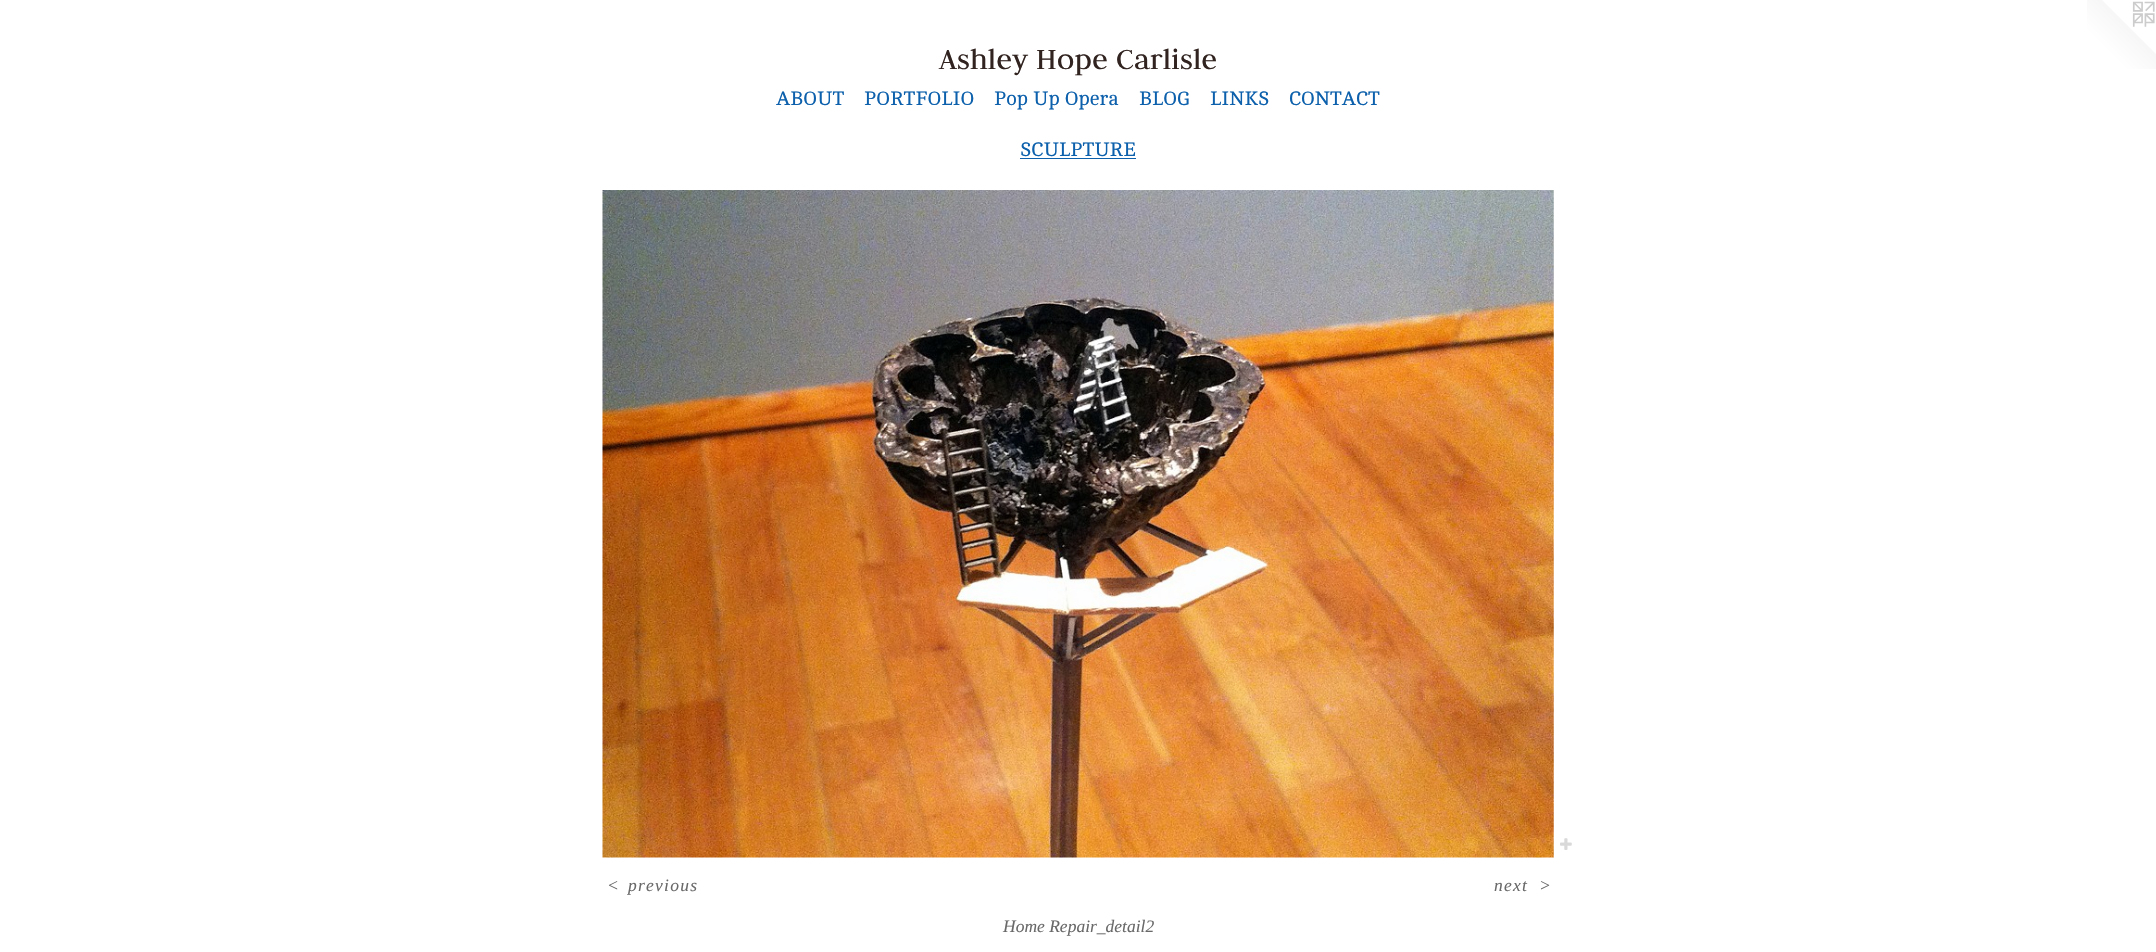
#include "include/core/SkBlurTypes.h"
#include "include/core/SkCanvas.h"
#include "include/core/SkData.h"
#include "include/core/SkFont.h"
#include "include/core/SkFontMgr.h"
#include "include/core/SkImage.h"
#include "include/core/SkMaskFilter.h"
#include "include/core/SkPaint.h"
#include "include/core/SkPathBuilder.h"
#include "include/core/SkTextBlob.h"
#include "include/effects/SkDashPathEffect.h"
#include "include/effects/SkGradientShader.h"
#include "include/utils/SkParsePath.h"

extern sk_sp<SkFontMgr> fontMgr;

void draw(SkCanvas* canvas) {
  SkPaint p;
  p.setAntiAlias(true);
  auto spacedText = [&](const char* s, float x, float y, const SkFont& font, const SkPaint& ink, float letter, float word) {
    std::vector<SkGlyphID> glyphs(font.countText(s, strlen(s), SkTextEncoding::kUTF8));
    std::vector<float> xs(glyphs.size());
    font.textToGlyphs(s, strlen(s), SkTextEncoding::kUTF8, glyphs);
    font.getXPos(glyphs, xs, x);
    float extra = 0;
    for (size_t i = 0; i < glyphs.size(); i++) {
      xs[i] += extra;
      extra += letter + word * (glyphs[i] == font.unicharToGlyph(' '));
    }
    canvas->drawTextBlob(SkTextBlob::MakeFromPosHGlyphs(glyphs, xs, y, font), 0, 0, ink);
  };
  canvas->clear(SK_ColorWHITE);
  canvas->drawImageRect(SkImages::DeferredFromEncodedData(SkData::MakeFromFileName("images/1.png")), SkRect::MakeLTRB(2087, 0, 2156, 69), SkSamplingOptions());
  p.setColor(SkColorSetRGB(12, 96, 172));
  canvas->drawRect(SkRect::MakeLTRB(1020, 158, 1136, 159), p);
  canvas->drawImageRect(SkImages::DeferredFromEncodedData(SkData::MakeFromFileName("images/2.png")), SkRect::MakeLTRB(602, 190, 1554, 858), SkSamplingOptions());
  canvas->drawImageRect(SkImages::DeferredFromEncodedData(SkData::MakeFromFileName("images/3.png")), SkRect::MakeLTRB(1560, 838, 1572, 850), SkSamplingOptions());
  SkFont font1(fontMgr->matchFamilyStyle("Judson", SkFontStyle::Normal()), 32.5f);
  font1.setSubpixel(true);
  p.setColor(SkColorSetRGB(49, 36, 32));
  canvas->drawString("Ashley Hope Carlisle", 939, 69, font1, p);
  SkFont font2(fontMgr->matchFamilyStyle("Cambo", SkFontStyle::Normal()), 20);
  font2.setSubpixel(true);
  p.setColor(SkColorSetRGB(12, 96, 172));
  canvas->drawString("ABOUT", 776, 105, font2, p);
  canvas->drawString("PORTFOLIO", 864, 105, font2, p);
  canvas->drawString("Pop Up Opera", 994, 105, font2, p);
  canvas->drawString("BLOG", 1139, 105, font2, p);
  canvas->drawString("LINKS", 1210, 105, font2, p);
  canvas->drawString("CONTACT", 1289, 105, font2, p);
  canvas->drawString("SCULPTURE", 1020, 156, font2, p);
  SkFont font3(fontMgr->matchFamilyStyle("Liberation Serif", SkFontStyle::Italic()), 17.5f);
  font3.setSubpixel(true);
  p.setColor(SkColorSetRGB(105, 105, 105));
  spacedText("<", 607, 891, font3, p, 1.25f, 0);
  spacedText("previous", 628, 891, font3, p, 1.25f, 0);
  spacedText("next", 1494, 891, font3, p, 1.25f, 0);
  spacedText(">", 1539, 891, font3, p, 1.25f, 0);
  canvas->drawString("Home Repair_detail2", 1003, 932, font3, p);
}
